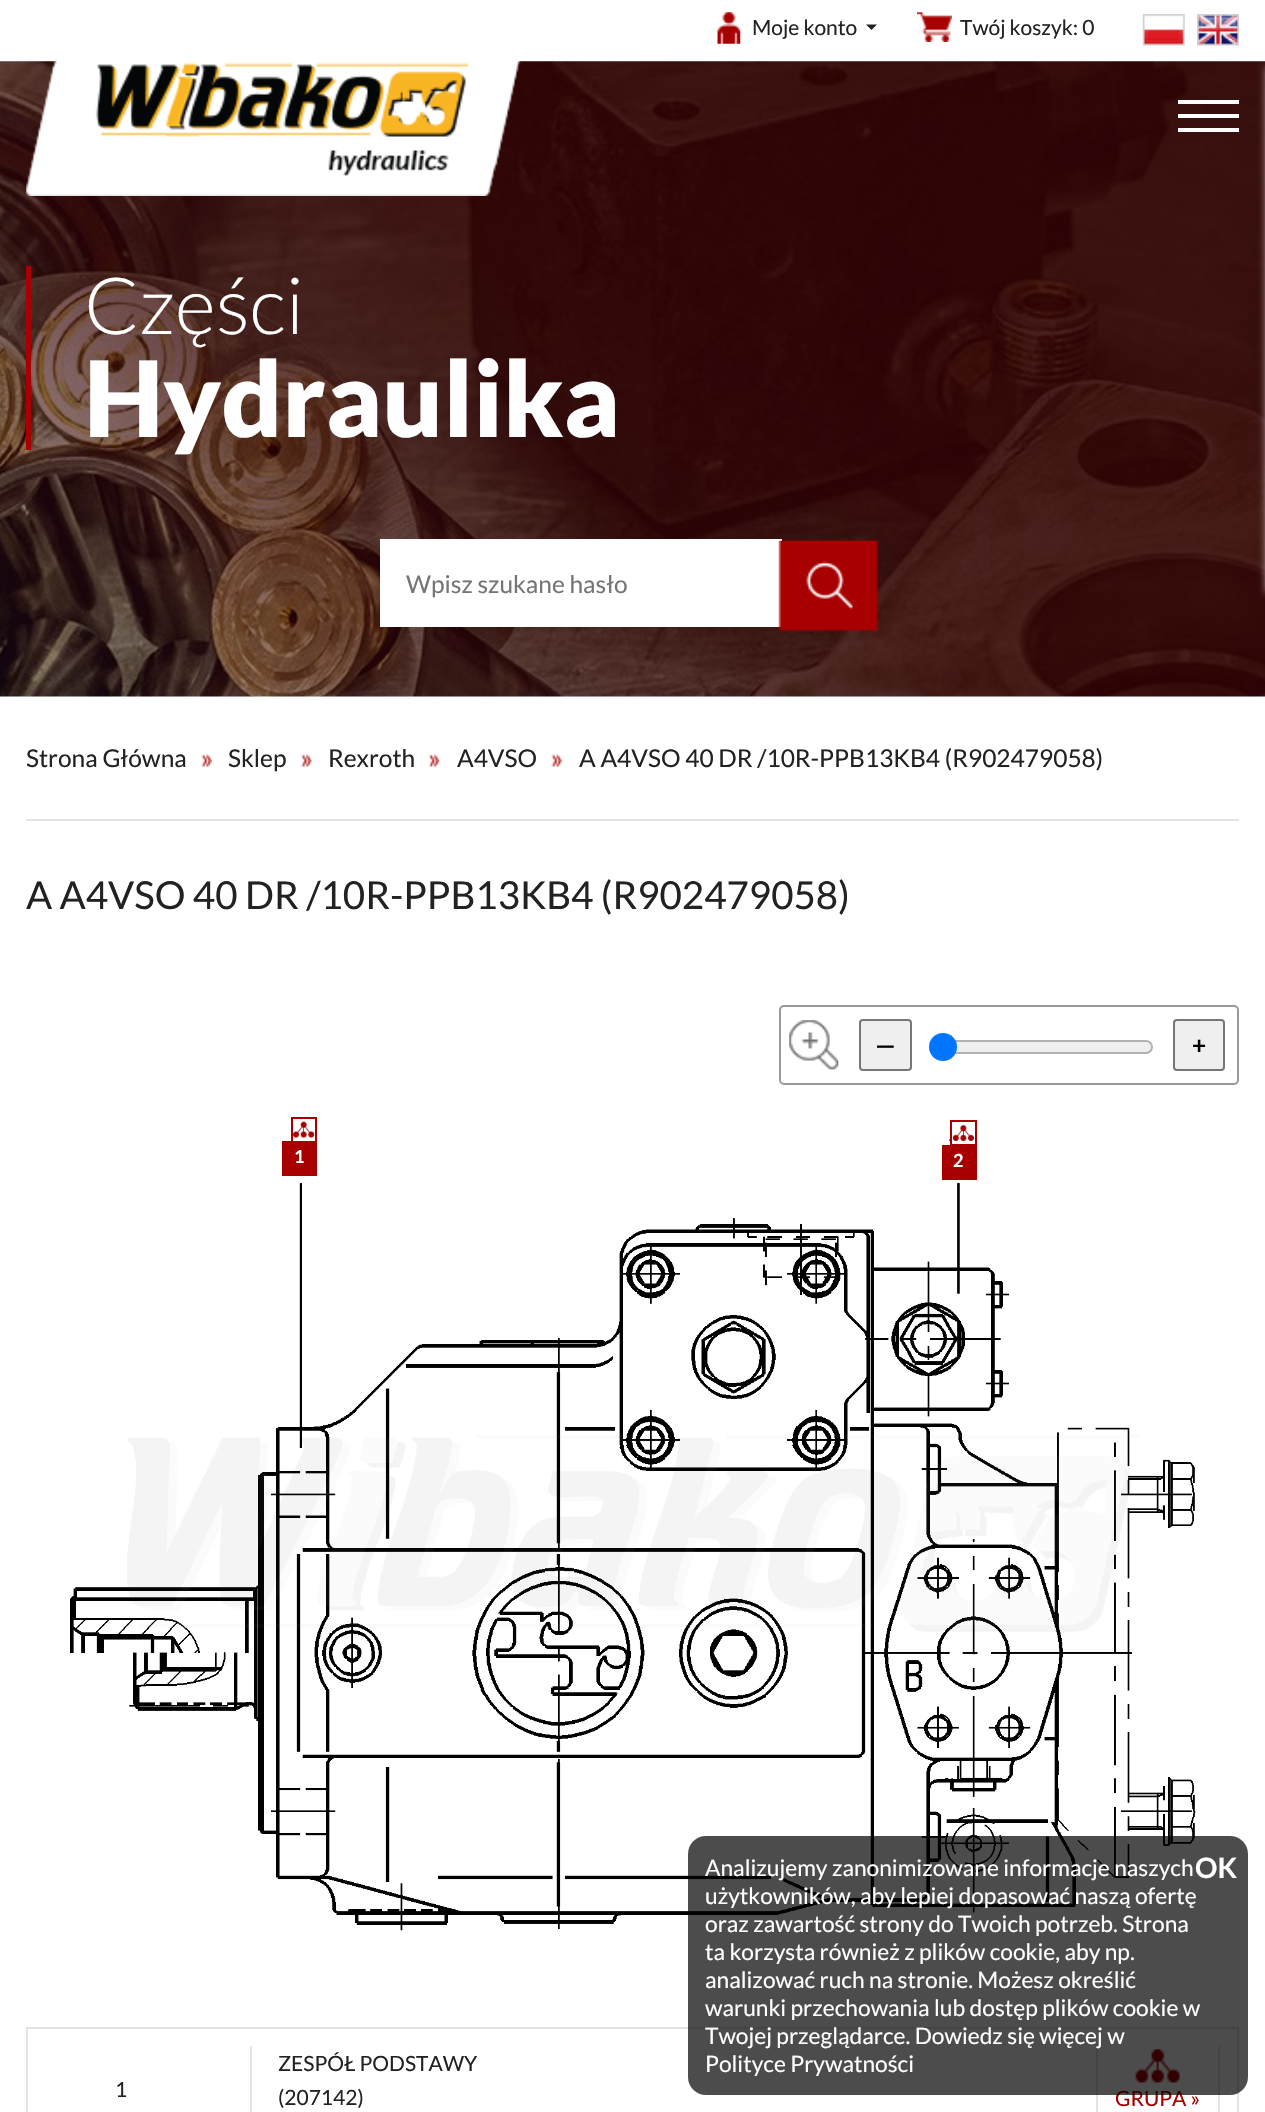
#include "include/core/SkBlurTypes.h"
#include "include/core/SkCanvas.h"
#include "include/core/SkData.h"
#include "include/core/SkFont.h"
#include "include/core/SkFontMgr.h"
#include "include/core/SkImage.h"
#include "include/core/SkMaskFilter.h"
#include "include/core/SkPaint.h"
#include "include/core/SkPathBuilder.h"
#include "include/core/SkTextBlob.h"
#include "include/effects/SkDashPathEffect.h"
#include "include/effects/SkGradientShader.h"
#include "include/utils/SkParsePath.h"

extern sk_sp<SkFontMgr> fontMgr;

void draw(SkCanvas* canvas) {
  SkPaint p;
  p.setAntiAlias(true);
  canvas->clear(SK_ColorWHITE);
  canvas->drawImageRect(SkImages::DeferredFromEncodedData(SkData::MakeFromFileName("images/1.png")), SkRect::MakeLTRB(0, 61, 1265, 697), SkSamplingOptions());
  canvas->drawImageRect(SkImages::DeferredFromEncodedData(SkData::MakeFromFileName("images/2.png")), SkRect::MakeLTRB(717, 12, 741, 44), SkSamplingOptions());
  p.setColor(SkColorSetRGB(34, 34, 34));
  canvas->drawPath(SkPathBuilder().moveTo(866, 24.5f).lineTo(877, 24.5f).lineTo(871.5f, 30).close().detach(), p);
  canvas->drawImageRect(SkImages::DeferredFromEncodedData(SkData::MakeFromFileName("images/3.png")), SkRect::MakeLTRB(917, 12, 952, 42), SkSamplingOptions());
  canvas->drawImageRect(SkImages::DeferredFromEncodedData(SkData::MakeFromFileName("images/4.png")), SkRect::MakeLTRB(1142, 14, 1185, 46), SkSamplingOptions());
  canvas->drawImageRect(SkImages::DeferredFromEncodedData(SkData::MakeFromFileName("images/5.png")), SkRect::MakeLTRB(1197, 14, 1239, 46), SkSamplingOptions());
  p.setColor(SkColorSetRGB(204, 204, 204));
  p.setMaskFilter(SkMaskFilter::MakeBlur(kNormal_SkBlurStyle, 4.5f));
  canvas->drawRect(SkRect::MakeLTRB(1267, 67, 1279, 592), p);
  p.setMaskFilter(nullptr);
  canvas->drawImageRect(SkImages::DeferredFromEncodedData(SkData::MakeFromFileName("images/6.png")), SkRect::MakeLTRB(26, 61, 521, 196), SkSamplingOptions());
  p.setColor(SK_ColorWHITE);
  canvas->drawRect(SkRect::MakeLTRB(1178, 100, 1239, 104), p);
  canvas->drawRect(SkRect::MakeLTRB(1178, 114, 1239, 118), p);
  canvas->drawRect(SkRect::MakeLTRB(1178, 128, 1239, 132), p);
  p.setColor(SkColorSetRGB(168, 0, 0));
  canvas->drawRect(SkRect::MakeLTRB(26, 266, 31, 450), p);
  p.setColor(SK_ColorWHITE);
  canvas->drawRect(SkRect::MakeLTRB(380, 539, 782, 627), p);
  canvas->drawImageRect(SkImages::DeferredFromEncodedData(SkData::MakeFromFileName("images/7.png")), SkRect::MakeLTRB(778, 540, 879, 632), SkSamplingOptions());
  p.setColor(SkColorSetRGB(228, 228, 228));
  canvas->drawRect(SkRect::MakeLTRB(26, 819, 1239, 821), p);
  canvas->drawImageRect(SkImages::DeferredFromEncodedData(SkData::MakeFromFileName("images/8.png")), SkRect::MakeLTRB(201, 754, 212, 767), SkSamplingOptions());
  canvas->drawImageRect(SkImages::DeferredFromEncodedData(SkData::MakeFromFileName("images/9.png")), SkRect::MakeLTRB(301, 754, 312, 767), SkSamplingOptions());
  canvas->drawImageRect(SkImages::DeferredFromEncodedData(SkData::MakeFromFileName("images/10.png")), SkRect::MakeLTRB(428, 754, 440, 767), SkSamplingOptions());
  canvas->drawImageRect(SkImages::DeferredFromEncodedData(SkData::MakeFromFileName("images/11.png")), SkRect::MakeLTRB(551, 754, 562, 767), SkSamplingOptions());
  canvas->drawImageRect(SkImages::DeferredFromEncodedData(SkData::MakeFromFileName("images/12.png")), SkRect::MakeLTRB(789, 1020, 839, 1070), SkSamplingOptions());
  p.setStyle(SkPaint::kStroke_Style);
  p.setStrokeWidth(2);
  p.setColor(SkColorSetRGB(153, 153, 153));
  canvas->drawRoundRect(SkRect::MakeLTRB(780, 1006, 1238, 1084), 4, 4, p);
  p.setStyle(SkPaint::kFill_Style);
  p.setColor(SkColorSetRGB(239, 239, 239));
  canvas->drawRoundRect(SkRect::MakeLTRB(860, 1020, 911, 1070), 3, 3, p);
  p.setStyle(SkPaint::kStroke_Style);
  p.setColor(SkColorSetRGB(118, 118, 118));
  canvas->drawRoundRect(SkRect::MakeLTRB(860, 1020, 911, 1070), 3, 3, p);
  p.setStyle(SkPaint::kFill_Style);
  p.setColor(SkColorSetRGB(239, 239, 239));
  canvas->drawRoundRect(SkRect::MakeLTRB(932, 1041, 1152, 1053), 6, 6, p);
  p.setStyle(SkPaint::kStroke_Style);
  p.setColor(SkColorSetRGB(178, 178, 178));
  canvas->drawRoundRect(SkRect::MakeLTRB(932, 1041, 1152, 1053), 6, 6, p);
  p.setStyle(SkPaint::kFill_Style);
  p.setColor(SkColorSetRGB(0, 117, 255));
  canvas->drawCircle(943, 1047, 14, p);
  p.setColor(SkColorSetRGB(239, 239, 239));
  canvas->drawRoundRect(SkRect::MakeLTRB(1174, 1020, 1224, 1070), 3, 3, p);
  p.setStyle(SkPaint::kStroke_Style);
  p.setColor(SkColorSetRGB(118, 118, 118));
  canvas->drawRoundRect(SkRect::MakeLTRB(1174, 1020, 1224, 1070), 3, 3, p);
  canvas->drawImageRect(SkImages::DeferredFromEncodedData(SkData::MakeFromFileName("images/13.png")), SkRect::MakeLTRB(70, 1135, 1196, 1931), SkSamplingOptions());
  p.setStyle(SkPaint::kFill_Style);
  p.setColor(SkColorSetRGB(168, 0, 0));
  canvas->drawRect(SkRect::MakeLTRB(282, 1141, 317, 1176), p);
  p.setColor(SK_ColorWHITE);
  canvas->drawRect(SkRect::MakeLTRB(295, 1135, 303, 1141), p);
  canvas->drawImageRect(SkImages::DeferredFromEncodedData(SkData::MakeFromFileName("images/14.png")), SkRect::MakeLTRB(293, 1121, 315, 1138), SkSamplingOptions());
  p.setStyle(SkPaint::kStroke_Style);
  p.setColor(SkColorSetRGB(168, 0, 0));
  canvas->drawRect(SkRect::MakeLTRB(292, 1118, 316, 1142), p);
  p.setStyle(SkPaint::kFill_Style);
  canvas->drawRect(SkRect::MakeLTRB(942, 1145, 977, 1180), p);
  p.setColor(SK_ColorWHITE);
  canvas->drawRect(SkRect::MakeLTRB(952, 1135, 968, 1144), p);
  canvas->drawImageRect(SkImages::DeferredFromEncodedData(SkData::MakeFromFileName("images/15.png")), SkRect::MakeLTRB(952, 1125, 974, 1141), SkSamplingOptions());
  p.setStyle(SkPaint::kStroke_Style);
  p.setColor(SkColorSetRGB(168, 0, 0));
  canvas->drawRect(SkRect::MakeLTRB(951, 1121, 976, 1145), p);
  p.setColor(SkColorSetRGB(228, 228, 228));
  canvas->drawRect(SkRect::MakeLTRB(27, 2028, 1238, 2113), p);
  p.setStyle(SkPaint::kFill_Style);
  canvas->drawRect(SkRect::MakeLTRB(1218, 2046, 1220, 2112), p);
  canvas->drawRect(SkRect::MakeLTRB(250, 2046, 252, 2112), p);
  canvas->drawRect(SkRect::MakeLTRB(1096, 2046, 1098, 2112), p);
  canvas->drawImageRect(SkImages::DeferredFromEncodedData(SkData::MakeFromFileName("images/16.png")), SkRect::MakeLTRB(1135, 2049, 1180, 2083), SkSamplingOptions());
  SkFont font1(fontMgr->matchFamilyStyle("Lato", SkFontStyle::Normal()), 21);
  font1.setSubpixel(true);
  p.setColor(SkColorSetRGB(34, 34, 34));
  canvas->drawString("Moje konto", 752, 35, font1, p);
  canvas->drawString("Twój koszyk: 0", 960, 35, font1, p);
  SkFont font2(fontMgr->matchFamilyStyle("Lato", SkFontStyle(300, SkFontStyle::kNormal_Width, SkFontStyle::kUpright_Slant)), 79);
  font2.setSubpixel(true);
  p.setColor(SK_ColorWHITE);
  canvas->drawString("Części", 84, 334, font2, p);
  SkFont font3(fontMgr->matchFamilyStyle("Lato", SkFontStyle(900, SkFontStyle::kNormal_Width, SkFontStyle::kUpright_Slant)), 105);
  font3.setSubpixel(true);
  canvas->drawString("Hydraulika", 84, 437, font3, p);
  SkFont font4(fontMgr->matchFamilyStyle("Lato", SkFontStyle::Normal()), 24.5f);
  font4.setSubpixel(true);
  p.setColor(SkColorSetRGB(117, 117, 117));
  canvas->drawString("Wpisz szukane hasło", 406, 593, font4, p);
  p.setColor(SkColorSetRGB(34, 34, 34));
  canvas->drawString("Strona Główna", 26, 767, font4, p);
  canvas->drawString("Sklep", 228, 767, font4, p);
  canvas->drawString("Rexroth", 328, 767, font4, p);
  canvas->drawString("A4VSO", 457, 767, font4, p);
  canvas->drawString("A A4VSO 40 DR /10R-PPB13KB4 (R902479058)", 579, 767, font4, p);
  SkFont font5(fontMgr->matchFamilyStyle("Lato", SkFontStyle::Normal()), 38.5f);
  font5.setSubpixel(true);
  canvas->drawString("A A4VSO 40 DR /10R-PPB13KB4 (R902479058)", 26, 909, font5, p);
  SkFont font6(fontMgr->matchFamilyStyle("Lato", SkFontStyle::Bold()), 24.5f);
  font6.setSubpixel(true);
  p.setColor(SK_ColorBLACK);
  canvas->drawString("—", 875, 1054, font6, p);
  canvas->drawString("+", 1192, 1054, font6, p);
  SkFont font7(fontMgr->matchFamilyStyle("Lato", SkFontStyle::Bold()), 18);
  font7.setSubpixel(true);
  p.setColor(SK_ColorWHITE);
  canvas->drawString("1", 294, 1163, font7, p);
  canvas->drawString("2", 953, 1167, font7, p);
  p.setColor(SkColorSetRGB(34, 34, 34));
  canvas->drawString("1", 115, 2097, font1, p);
  canvas->drawString("ZESPÓŁ PODSTAWY", 278, 2071, font1, p);
  canvas->drawString("(207142)", 278, 2105, font1, p);
  p.setColor(SkColorSetRGB(168, 0, 0));
  canvas->drawString("GRUPA »", 1115, 2106, font1, p);
  p.setColor(SkColorSetARGB(179, 0, 0, 0));
  canvas->drawRoundRect(SkRect::MakeLTRB(688, 1836, 1248, 2095), 18, 18, p);
  SkFont font8(fontMgr->matchFamilyStyle("Lato", SkFontStyle::Normal()), 22.75f);
  font8.setSubpixel(true);
  p.setColor(SK_ColorWHITE);
  canvas->drawString("Analizujemy zanonimizowane informacje naszych", 705, 1876, font8, p);
  SkFont font9(fontMgr->matchFamilyStyle("Lato", SkFontStyle::Bold()), 28);
  font9.setSubpixel(true);
  canvas->drawString("OK", 1195, 1878, font9, p);
  canvas->drawString("użytkowników, aby lepiej dopasować naszą ofertę", 705, 1904, font8, p);
  canvas->drawString("oraz zawartość strony do Twoich potrzeb. Strona", 705, 1932, font8, p);
  canvas->drawString("ta korzysta również z plików cookie, aby np.", 705, 1960, font8, p);
  canvas->drawString("analizować ruch na stronie. Możesz określić", 705, 1988, font8, p);
  canvas->drawString("warunki przechowania lub dostęp plików cookie w", 705, 2016, font8, p);
  canvas->drawString("Twojej przeglądarce. Dowiedz się więcej w", 705, 2044, font8, p);
  canvas->drawString("Polityce Prywatności", 705, 2072, font8, p);
}
